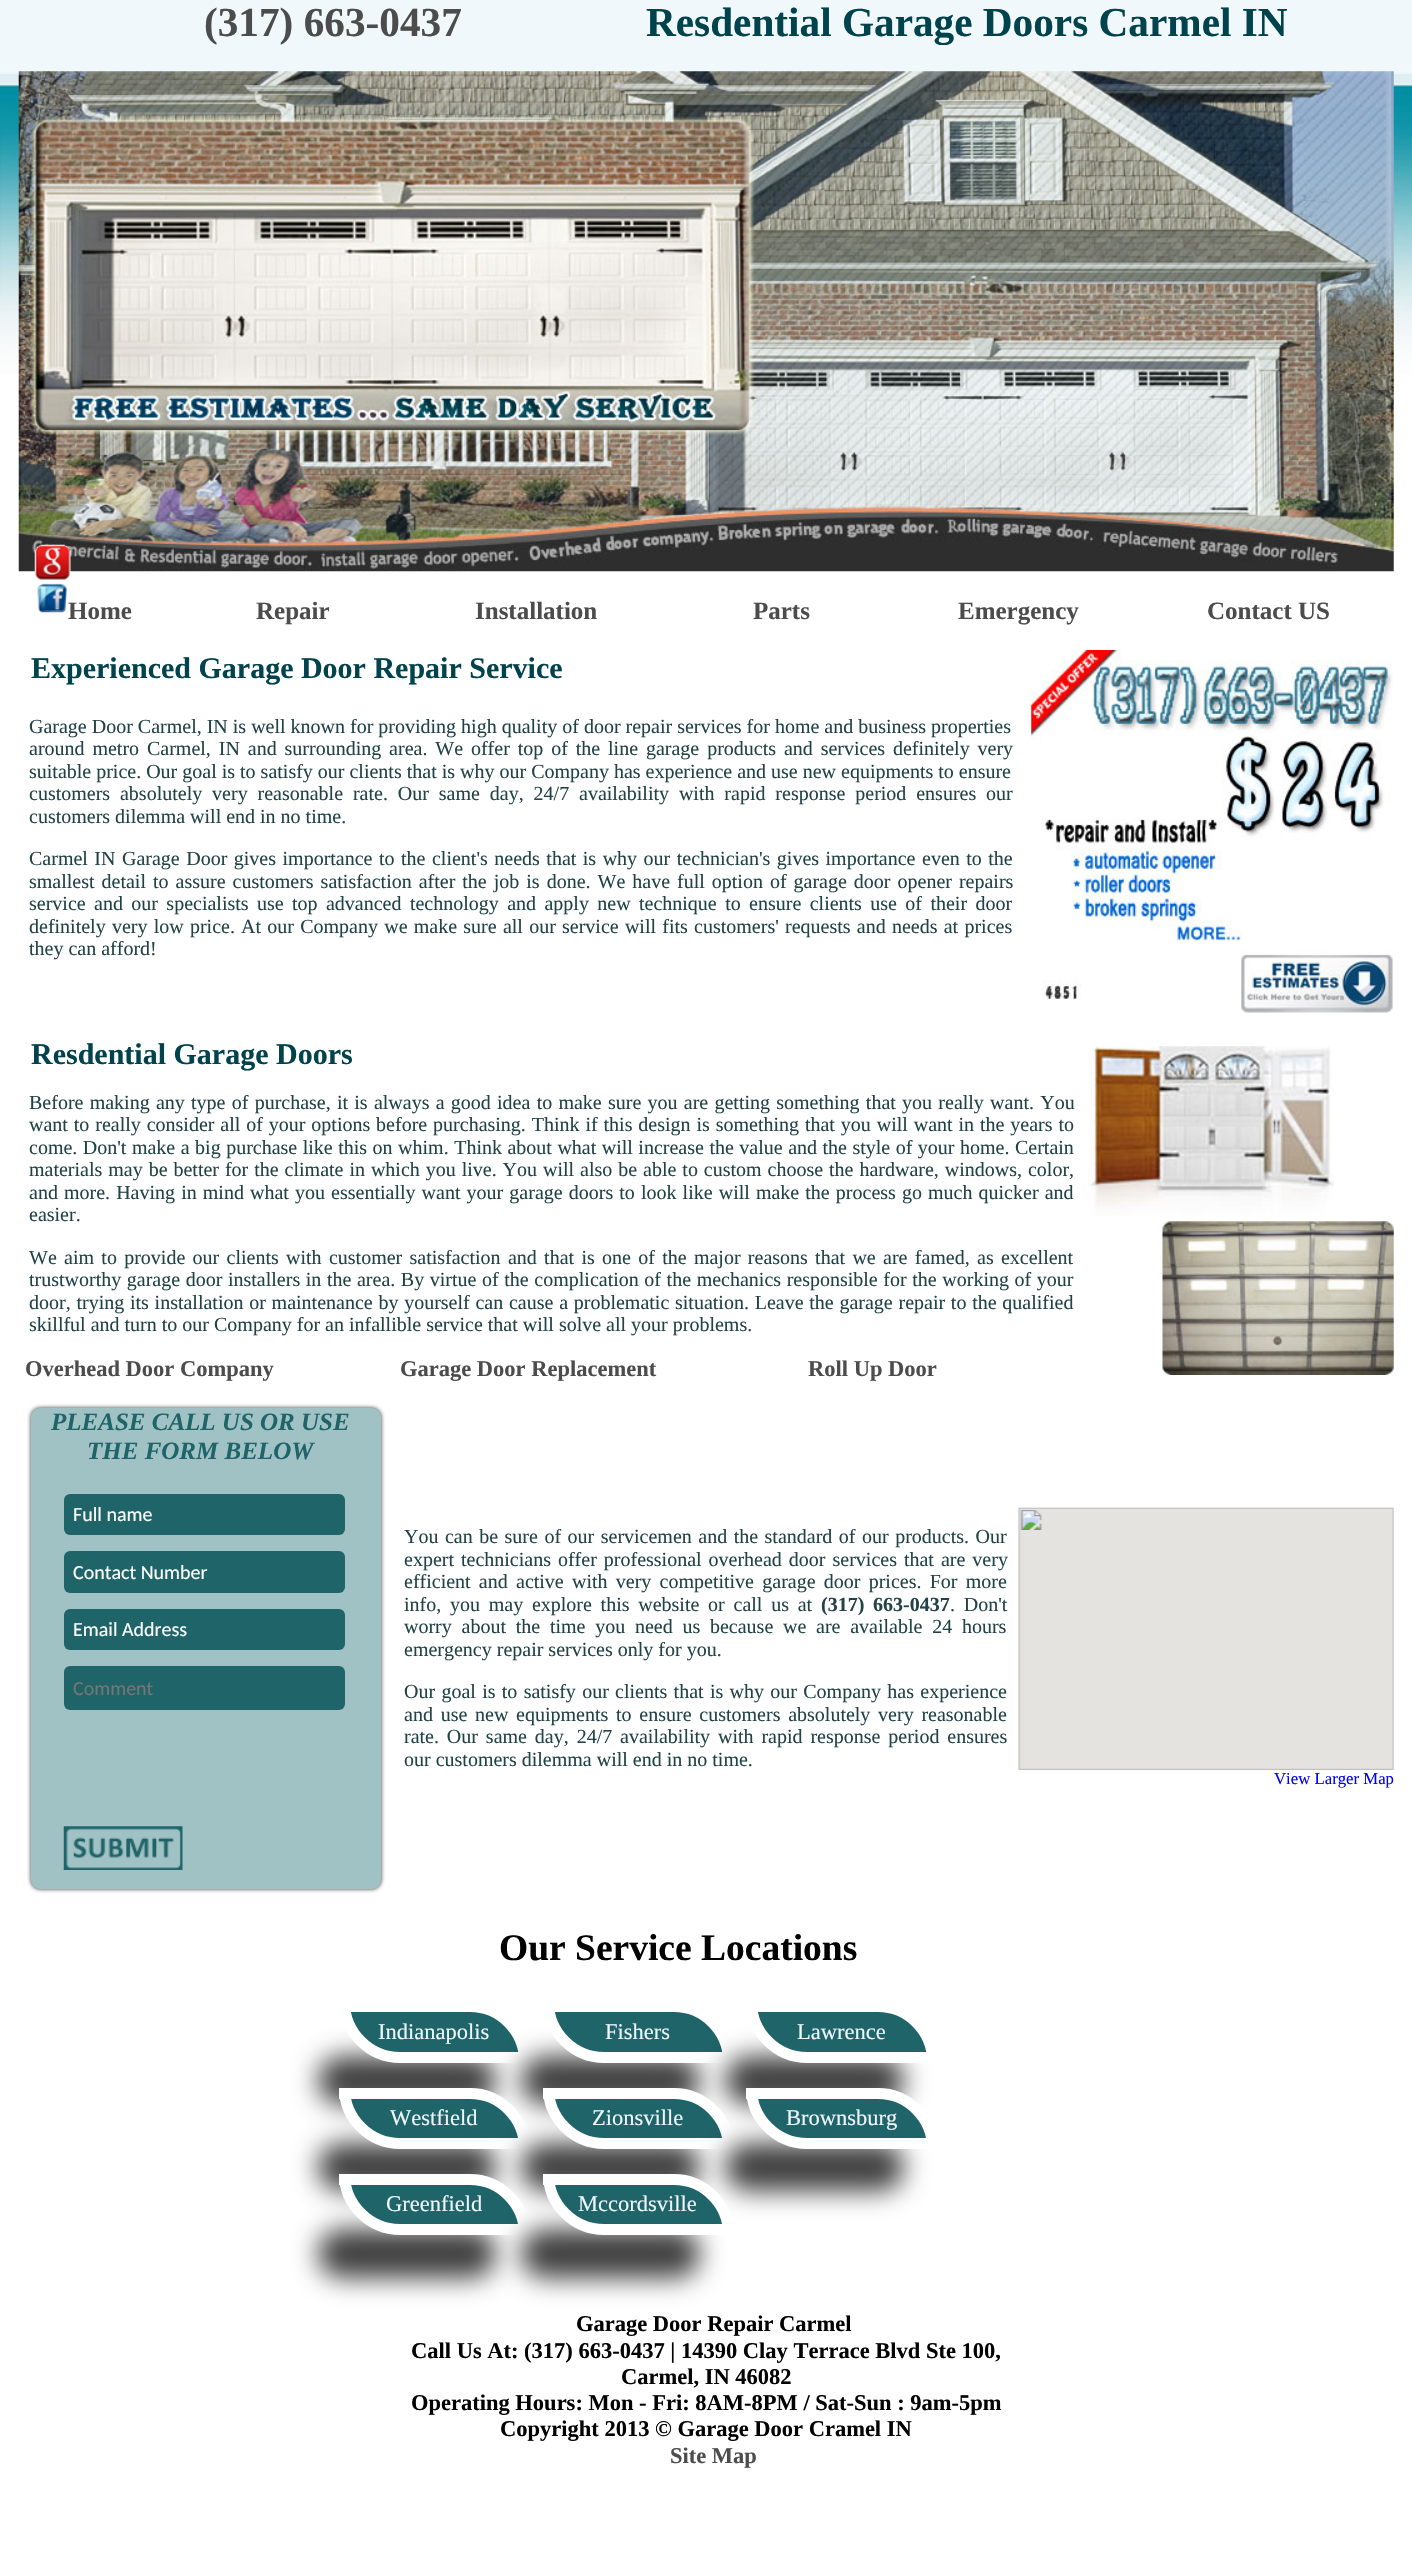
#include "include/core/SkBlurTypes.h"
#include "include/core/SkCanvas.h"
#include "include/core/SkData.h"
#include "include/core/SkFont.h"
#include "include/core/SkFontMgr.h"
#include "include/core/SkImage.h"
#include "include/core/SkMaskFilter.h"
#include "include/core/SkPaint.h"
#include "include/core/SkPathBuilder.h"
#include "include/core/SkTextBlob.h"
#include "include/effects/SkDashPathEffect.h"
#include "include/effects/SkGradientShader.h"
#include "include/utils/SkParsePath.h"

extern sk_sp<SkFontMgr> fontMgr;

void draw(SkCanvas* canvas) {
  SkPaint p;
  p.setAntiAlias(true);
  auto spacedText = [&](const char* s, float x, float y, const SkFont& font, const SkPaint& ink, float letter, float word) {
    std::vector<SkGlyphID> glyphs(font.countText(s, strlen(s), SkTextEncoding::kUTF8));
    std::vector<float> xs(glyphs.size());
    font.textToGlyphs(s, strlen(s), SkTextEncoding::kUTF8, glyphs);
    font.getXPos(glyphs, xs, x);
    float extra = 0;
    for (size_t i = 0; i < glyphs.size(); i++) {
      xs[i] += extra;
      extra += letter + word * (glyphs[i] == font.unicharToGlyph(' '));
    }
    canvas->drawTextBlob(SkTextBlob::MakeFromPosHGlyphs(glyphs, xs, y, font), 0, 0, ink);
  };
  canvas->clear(SK_ColorWHITE);
  canvas->drawImageRect(SkImages::DeferredFromEncodedData(SkData::MakeFromFileName("images/1.png")), SkRect::MakeLTRB(0, 0, 1412, 374), SkSamplingOptions());
  canvas->drawImageRect(SkImages::DeferredFromEncodedData(SkData::MakeFromFileName("images/2.png")), SkRect::MakeLTRB(18, 71, 1394, 572), SkSamplingOptions());
  canvas->drawImageRect(SkImages::DeferredFromEncodedData(SkData::MakeFromFileName("images/3.png")), SkRect::MakeLTRB(34, 544, 71, 580), SkSamplingOptions());
  canvas->drawImageRect(SkImages::DeferredFromEncodedData(SkData::MakeFromFileName("images/4.png")), SkRect::MakeLTRB(36, 583, 67, 613), SkSamplingOptions());
  canvas->drawImageRect(SkImages::DeferredFromEncodedData(SkData::MakeFromFileName("images/5.png")), SkRect::MakeLTRB(1031, 650, 1393, 1013), SkSamplingOptions());
  canvas->drawImageRect(SkImages::DeferredFromEncodedData(SkData::MakeFromFileName("images/6.png")), SkRect::MakeLTRB(1088, 1046, 1334, 1216), SkSamplingOptions());
  canvas->drawImageRect(SkImages::DeferredFromEncodedData(SkData::MakeFromFileName("images/7.png")), SkRect::MakeLTRB(1162, 1221, 1394, 1375), SkSamplingOptions());
  p.setColor(SkColorSetRGB(51, 51, 51));
  p.setMaskFilter(SkMaskFilter::MakeBlur(kNormal_SkBlurStyle, 2));
  canvas->drawRoundRect(SkRect::MakeLTRB(31, 1408, 381, 1889), 9, 9, p);
  p.setMaskFilter(nullptr);
  p.setColor(SkColorSetRGB(160, 194, 196));
  canvas->drawRoundRect(SkRect::MakeLTRB(31, 1408, 381, 1889), 9, 9, p);
  p.setColor(SkColorSetRGB(31, 100, 105));
  canvas->drawRoundRect(SkRect::MakeLTRB(64, 1494, 345, 1535), 6, 6, p);
  canvas->drawRoundRect(SkRect::MakeLTRB(64, 1551, 345, 1593), 6, 6, p);
  canvas->drawRoundRect(SkRect::MakeLTRB(64, 1609, 345, 1650), 6, 6, p);
  canvas->drawRoundRect(SkRect::MakeLTRB(64, 1666, 345, 1710), 6, 6, p);
  canvas->drawImageRect(SkImages::DeferredFromEncodedData(SkData::MakeFromFileName("images/8.png")), SkRect::MakeLTRB(63, 1826, 183, 1870), SkSamplingOptions());
  canvas->drawImageRect(SkImages::DeferredFromEncodedData(SkData::MakeFromFileName("images/9.png")), SkRect::MakeLTRB(1018, 1507, 1394, 1770), SkSamplingOptions());
  p.setColor(SkColorSetARGB(191, 0, 0, 0));
  p.setMaskFilter(SkMaskFilter::MakeBlur(kNormal_SkBlurStyle, 13));
  canvas->drawRoundRect(SkRect::MakeLTRB(318, 2056, 496, 2105), 49, 49, p);
  p.setMaskFilter(nullptr);
  p.setColor(SkColorSetRGB(31, 100, 105));
  canvas->drawPath(SkPathBuilder().moveTo(344.5f, 2006.5f).lineTo(470, 2006.5f).cubicTo(500, 2006.5f, 524.5f, 2031, 524.5f, 2061).lineTo(524.5f, 2057.5f).lineTo(400, 2057.5f).cubicTo(369.5f, 2057.5f, 344.5f, 2032.5f, 344.5f, 2002).close().detach(), p);
  p.setStyle(SkPaint::kStroke_Style);
  p.setStrokeWidth(11);
  p.setColor(SK_ColorWHITE);
  canvas->drawPath(SkPathBuilder().moveTo(344.5f, 2006.5f).lineTo(470, 2006.5f).cubicTo(500, 2006.5f, 524.5f, 2031, 524.5f, 2061).lineTo(524.5f, 2057.5f).lineTo(400, 2057.5f).cubicTo(369.5f, 2057.5f, 344.5f, 2032.5f, 344.5f, 2002).close().detach(), p);
  p.setStyle(SkPaint::kFill_Style);
  p.setColor(SkColorSetARGB(191, 0, 0, 0));
  p.setMaskFilter(SkMaskFilter::MakeBlur(kNormal_SkBlurStyle, 13));
  canvas->drawRoundRect(SkRect::MakeLTRB(521, 2056, 700, 2105), 49, 49, p);
  p.setMaskFilter(nullptr);
  p.setColor(SkColorSetRGB(31, 100, 105));
  canvas->drawPath(SkPathBuilder().moveTo(548.5f, 2006.5f).lineTo(674, 2006.5f).cubicTo(704, 2006.5f, 728.5f, 2031, 728.5f, 2061).lineTo(728.5f, 2057.5f).lineTo(604, 2057.5f).cubicTo(573.5f, 2057.5f, 548.5f, 2032.5f, 548.5f, 2002).close().detach(), p);
  p.setStyle(SkPaint::kStroke_Style);
  p.setColor(SK_ColorWHITE);
  canvas->drawPath(SkPathBuilder().moveTo(548.5f, 2006.5f).lineTo(674, 2006.5f).cubicTo(704, 2006.5f, 728.5f, 2031, 728.5f, 2061).lineTo(728.5f, 2057.5f).lineTo(604, 2057.5f).cubicTo(573.5f, 2057.5f, 548.5f, 2032.5f, 548.5f, 2002).close().detach(), p);
  p.setStyle(SkPaint::kFill_Style);
  p.setColor(SkColorSetARGB(191, 0, 0, 0));
  p.setMaskFilter(SkMaskFilter::MakeBlur(kNormal_SkBlurStyle, 13));
  canvas->drawRoundRect(SkRect::MakeLTRB(725, 2056, 904, 2105), 49, 49, p);
  p.setMaskFilter(nullptr);
  p.setColor(SkColorSetRGB(31, 100, 105));
  canvas->drawPath(SkPathBuilder().moveTo(751.5f, 2006.5f).lineTo(878, 2006.5f).cubicTo(908, 2006.5f, 932.5f, 2031, 932.5f, 2061).lineTo(932.5f, 2057.5f).lineTo(807, 2057.5f).cubicTo(776.5f, 2057.5f, 751.5f, 2032.5f, 751.5f, 2002).close().detach(), p);
  p.setStyle(SkPaint::kStroke_Style);
  p.setColor(SK_ColorWHITE);
  canvas->drawPath(SkPathBuilder().moveTo(751.5f, 2006.5f).lineTo(878, 2006.5f).cubicTo(908, 2006.5f, 932.5f, 2031, 932.5f, 2061).lineTo(932.5f, 2057.5f).lineTo(807, 2057.5f).cubicTo(776.5f, 2057.5f, 751.5f, 2032.5f, 751.5f, 2002).close().detach(), p);
  p.setStyle(SkPaint::kFill_Style);
  p.setColor(SkColorSetARGB(191, 0, 0, 0));
  p.setMaskFilter(SkMaskFilter::MakeBlur(kNormal_SkBlurStyle, 13));
  canvas->drawRoundRect(SkRect::MakeLTRB(318, 2143, 496, 2191), 49, 49, p);
  p.setMaskFilter(nullptr);
  p.setColor(SkColorSetRGB(31, 100, 105));
  canvas->drawPath(SkPathBuilder().moveTo(344.5f, 2093.5f).lineTo(470, 2093.5f).cubicTo(500, 2093.5f, 524.5f, 2118, 524.5f, 2148).lineTo(524.5f, 2143.5f).lineTo(400, 2143.5f).cubicTo(369.5f, 2143.5f, 344.5f, 2118.5f, 344.5f, 2088).close().detach(), p);
  p.setStyle(SkPaint::kStroke_Style);
  p.setColor(SK_ColorWHITE);
  canvas->drawPath(SkPathBuilder().moveTo(344.5f, 2093.5f).lineTo(470, 2093.5f).cubicTo(500, 2093.5f, 524.5f, 2118, 524.5f, 2148).lineTo(524.5f, 2143.5f).lineTo(400, 2143.5f).cubicTo(369.5f, 2143.5f, 344.5f, 2118.5f, 344.5f, 2088).close().detach(), p);
  p.setStyle(SkPaint::kFill_Style);
  p.setColor(SkColorSetARGB(191, 0, 0, 0));
  p.setMaskFilter(SkMaskFilter::MakeBlur(kNormal_SkBlurStyle, 13));
  canvas->drawRoundRect(SkRect::MakeLTRB(521, 2143, 700, 2191), 49, 49, p);
  p.setMaskFilter(nullptr);
  p.setColor(SkColorSetRGB(31, 100, 105));
  canvas->drawPath(SkPathBuilder().moveTo(548.5f, 2093.5f).lineTo(674, 2093.5f).cubicTo(704, 2093.5f, 728.5f, 2118, 728.5f, 2148).lineTo(728.5f, 2143.5f).lineTo(604, 2143.5f).cubicTo(573.5f, 2143.5f, 548.5f, 2118.5f, 548.5f, 2088).close().detach(), p);
  p.setStyle(SkPaint::kStroke_Style);
  p.setColor(SK_ColorWHITE);
  canvas->drawPath(SkPathBuilder().moveTo(548.5f, 2093.5f).lineTo(674, 2093.5f).cubicTo(704, 2093.5f, 728.5f, 2118, 728.5f, 2148).lineTo(728.5f, 2143.5f).lineTo(604, 2143.5f).cubicTo(573.5f, 2143.5f, 548.5f, 2118.5f, 548.5f, 2088).close().detach(), p);
  p.setStyle(SkPaint::kFill_Style);
  p.setColor(SkColorSetARGB(191, 0, 0, 0));
  p.setMaskFilter(SkMaskFilter::MakeBlur(kNormal_SkBlurStyle, 13));
  canvas->drawRoundRect(SkRect::MakeLTRB(725, 2143, 904, 2191), 49, 49, p);
  p.setMaskFilter(nullptr);
  p.setColor(SkColorSetRGB(31, 100, 105));
  canvas->drawPath(SkPathBuilder().moveTo(751.5f, 2093.5f).lineTo(878, 2093.5f).cubicTo(908, 2093.5f, 932.5f, 2118, 932.5f, 2148).lineTo(932.5f, 2143.5f).lineTo(807, 2143.5f).cubicTo(776.5f, 2143.5f, 751.5f, 2118.5f, 751.5f, 2088).close().detach(), p);
  p.setStyle(SkPaint::kStroke_Style);
  p.setColor(SK_ColorWHITE);
  canvas->drawPath(SkPathBuilder().moveTo(751.5f, 2093.5f).lineTo(878, 2093.5f).cubicTo(908, 2093.5f, 932.5f, 2118, 932.5f, 2148).lineTo(932.5f, 2143.5f).lineTo(807, 2143.5f).cubicTo(776.5f, 2143.5f, 751.5f, 2118.5f, 751.5f, 2088).close().detach(), p);
  p.setStyle(SkPaint::kFill_Style);
  p.setColor(SkColorSetARGB(191, 0, 0, 0));
  p.setMaskFilter(SkMaskFilter::MakeBlur(kNormal_SkBlurStyle, 13));
  canvas->drawRoundRect(SkRect::MakeLTRB(318, 2229, 496, 2278), 49, 49, p);
  p.setMaskFilter(nullptr);
  p.setColor(SkColorSetRGB(31, 100, 105));
  canvas->drawPath(SkPathBuilder().moveTo(344.5f, 2179.5f).lineTo(470, 2179.5f).cubicTo(500, 2179.5f, 524.5f, 2204, 524.5f, 2234).lineTo(524.5f, 2229.5f).lineTo(400, 2229.5f).cubicTo(369.5f, 2229.5f, 344.5f, 2204.5f, 344.5f, 2174).close().detach(), p);
  p.setStyle(SkPaint::kStroke_Style);
  p.setColor(SK_ColorWHITE);
  canvas->drawPath(SkPathBuilder().moveTo(344.5f, 2179.5f).lineTo(470, 2179.5f).cubicTo(500, 2179.5f, 524.5f, 2204, 524.5f, 2234).lineTo(524.5f, 2229.5f).lineTo(400, 2229.5f).cubicTo(369.5f, 2229.5f, 344.5f, 2204.5f, 344.5f, 2174).close().detach(), p);
  p.setStyle(SkPaint::kFill_Style);
  p.setColor(SkColorSetARGB(191, 0, 0, 0));
  p.setMaskFilter(SkMaskFilter::MakeBlur(kNormal_SkBlurStyle, 13));
  canvas->drawRoundRect(SkRect::MakeLTRB(521, 2229, 700, 2278), 49, 49, p);
  p.setMaskFilter(nullptr);
  p.setColor(SkColorSetRGB(31, 100, 105));
  canvas->drawPath(SkPathBuilder().moveTo(548.5f, 2179.5f).lineTo(674, 2179.5f).cubicTo(704, 2179.5f, 728.5f, 2204, 728.5f, 2234).lineTo(728.5f, 2229.5f).lineTo(604, 2229.5f).cubicTo(573.5f, 2229.5f, 548.5f, 2204.5f, 548.5f, 2174).close().detach(), p);
  p.setStyle(SkPaint::kStroke_Style);
  p.setColor(SK_ColorWHITE);
  canvas->drawPath(SkPathBuilder().moveTo(548.5f, 2179.5f).lineTo(674, 2179.5f).cubicTo(704, 2179.5f, 728.5f, 2204, 728.5f, 2234).lineTo(728.5f, 2229.5f).lineTo(604, 2229.5f).cubicTo(573.5f, 2229.5f, 548.5f, 2204.5f, 548.5f, 2174).close().detach(), p);
  SkFont font1(fontMgr->matchFamilyStyle("Liberation Serif", SkFontStyle::Bold()), 41.25f);
  font1.setSubpixel(true);
  p.setStyle(SkPaint::kFill_Style);
  p.setColor(SkColorSetRGB(76, 76, 76));
  canvas->drawString("(317) 663-0437", 204, 36, font1, p);
  p.setColor(SkColorSetRGB(0, 67, 77));
  canvas->drawString("Resdential Garage Doors Carmel IN", 646, 36, font1, p);
  SkFont font2(fontMgr->matchFamilyStyle("Liberation Serif", SkFontStyle::Bold()), 25);
  font2.setSubpixel(true);
  p.setColor(SkColorSetRGB(76, 76, 76));
  canvas->drawString("Home", 68, 619, font2, p);
  canvas->drawString("Repair", 256, 619, font2, p);
  canvas->drawString("Installation", 475, 619, font2, p);
  canvas->drawString("Parts", 753, 619, font2, p);
  canvas->drawString("Emergency", 958, 619, font2, p);
  canvas->drawString("Contact US", 1207, 619, font2, p);
  SkFont font3(fontMgr->matchFamilyStyle("Liberation Serif", SkFontStyle::Bold()), 30);
  font3.setSubpixel(true);
  p.setColor(SkColorSetRGB(0, 67, 77));
  canvas->drawString("Experienced Garage Door Repair Service", 31, 678, font3, p);
  SkFont font4(fontMgr->matchFamilyStyle("Liberation Serif", SkFontStyle::Normal()), 20);
  font4.setSubpixel(true);
  p.setColor(SkColorSetRGB(33, 67, 72));
  canvas->drawString("Garage Door Carmel, IN is well known for providing high quality of door repair services for home and business properties", 29, 733, font4, p);
  spacedText("around metro Carmel, IN and surrounding area. We offer top of the line garage products and services definitely very", 29, 755, font4, p, 0, 2.9f);
  canvas->drawString("suitable price. Our goal is to satisfy our clients that is why our Company has experience and use new equipments to ensure", 29, 778, font4, p);
  spacedText("customers absolutely very reasonable rate. Our same day, 24/7 availability with rapid response period ensures our", 29, 800, font4, p, 0, 4.9f);
  canvas->drawString("customers dilemma will end in no time.", 29, 823, font4, p);
  spacedText("Carmel IN Garage Door gives importance to the client's needs that is why our technician's gives importance even to the", 29, 865, font4, p, 0, 1.5f);
  spacedText("smallest detail to assure customers satisfaction after the job is done. We have full option of garage door opener repairs", 29, 888, font4, p, 0, 2);
  spacedText("service and our specialists use top advanced technology and apply new technique to ensure clients use of their door", 29, 910, font4, p, 0, 3.4f);
  spacedText("definitely very low price.", 29, 933, font4, p, 0, 1.25f);
  spacedText("At our Company we make sure all our service will fits customers' requests and needs at prices", 241, 933, font4, p, 0, 1.25f);
  canvas->drawString("they can afford!", 29, 955, font4, p);
  p.setColor(SkColorSetRGB(0, 67, 77));
  canvas->drawString("Resdential Garage Doors", 31, 1064, font3, p);
  p.setColor(SkColorSetRGB(33, 67, 72));
  spacedText("Before making any type of purchase, it is always a good idea to make sure you are getting something that you really want. You", 29, 1109, font4, p, 0, 1.25f);
  spacedText("want to really consider all of your options before purchasing. Think if this design is something that you will want in the years to", 29, 1131, font4, p, 0, 0.9f);
  spacedText("come. Don't make a big purchase like this on whim. Think about what will increase the value and the style of your home. Certain", 29, 1154, font4, p, 0, 0.5f);
  spacedText("materials may be better for the climate in which you live. You will also be able to custom choose the hardware, windows, color,", 29, 1176, font4, p, 0, 0.95f);
  spacedText("and more. Having in mind what you essentially want your garage doors to look like will make the process go much quicker and", 29, 1199, font4, p, 0, 1.1f);
  canvas->drawString("easier.", 29, 1221, font4, p);
  spacedText("We aim to provide our clients with customer satisfaction and that is one of the major reasons that we are famed, as excellent", 29, 1264, font4, p, 0, 2.3f);
  spacedText("trustworthy garage door installers in the area. By virtue of the complication of the mechanics responsible for the working of your", 29, 1286, font4, p, 0, 0.6f);
  spacedText("door, trying its installation or maintenance by yourself can cause a problematic situation. Leave the garage repair to the qualified", 29, 1309, font4, p, 0, 0.75f);
  canvas->drawString("skillful and turn to our Company for an infallible service that will solve all your problems.", 29, 1331, font4, p);
  SkFont font5(fontMgr->matchFamilyStyle("Liberation Serif", SkFontStyle::Bold()), 22.5f);
  font5.setSubpixel(true);
  p.setColor(SkColorSetRGB(76, 76, 76));
  canvas->drawString("Overhead Door Company", 25, 1376, font5, p);
  canvas->drawString("Garage Door Replacement", 400, 1376, font5, p);
  canvas->drawString("Roll Up Door", 808, 1376, font5, p);
  SkFont font6(fontMgr->matchFamilyStyle("Liberation Serif", SkFontStyle::BoldItalic()), 25);
  font6.setSubpixel(true);
  p.setColor(SkColorSetRGB(31, 100, 105));
  canvas->drawString("PLEASE CALL US OR USE", 51, 1430, font6, p);
  canvas->drawString("THE FORM BELOW", 87, 1459, font6, p);
  SkFont font7(fontMgr->matchFamilyStyle("Carlito", SkFontStyle::Normal()), 20);
  font7.setSubpixel(true);
  p.setColor(SK_ColorWHITE);
  canvas->drawString("Full name", 73, 1521, font7, p);
  canvas->drawString("Contact Number", 73, 1579, font7, p);
  canvas->drawString("Email Address", 73, 1636, font7, p);
  p.setColor(SkColorSetRGB(117, 117, 117));
  canvas->drawString("Comment", 73, 1695, font7, p);
  p.setColor(SkColorSetRGB(33, 67, 72));
  spacedText("You can be sure of our servicemen and the standard of our products. Our", 404, 1543, font4, p, 0, 1.5f);
  canvas->drawString("expert", 404, 1566, font4, p);
  spacedText("technicians offer professional overhead door services that are very", 461, 1566, font4, p, 0, 2);
  spacedText("efficient and active with very competitive garage door prices. For more", 404, 1588, font4, p, 0, 3.25f);
  spacedText("info, you may explore this website or call us at", 404, 1611, font4, p, 0, 3.75f);
  SkFont font8(fontMgr->matchFamilyStyle("Liberation Serif", SkFontStyle::Bold()), 20);
  font8.setSubpixel(true);
  spacedText("(317) 663-0437", 821, 1611, font8, p, 0, 3.75f);
  spacedText(". Don't", 950, 1611, font4, p, 0, 3.75f);
  spacedText("worry about the time you need us because we are available 24 hours", 404, 1633, font4, p, 0, 4.75f);
  canvas->drawString("emergency repair services only for you.", 404, 1656, font4, p);
  spacedText("Our goal is to satisfy our clients that is why our Company has experience", 404, 1698, font4, p, 0, 1.3f);
  spacedText("and use new equipments to ensure customers absolutely very reasonable", 404, 1721, font4, p, 0, 2.75f);
  spacedText("rate. Our same day, 24/7 availability with rapid response period ensures", 404, 1743, font4, p, 0, 2.9f);
  canvas->drawString("our customers dilemma will end in no time.", 404, 1766, font4, p);
  SkFont font9(fontMgr->matchFamilyStyle("Liberation Serif", SkFontStyle::Normal()), 16.75f);
  font9.setSubpixel(true);
  p.setColor(SkColorSetRGB(0, 0, 255));
  canvas->drawString("View Larger Map", 1274, 1784, font9, p);
  SkFont font10(fontMgr->matchFamilyStyle("Liberation Serif", SkFontStyle::Bold()), 37.5f);
  font10.setSubpixel(true);
  p.setColor(SkColorSetRGB(1, 1, 1));
  canvas->drawString("Our Service Locations", 499, 1960, font10, p);
  SkFont font11(fontMgr->matchFamilyStyle("Liberation Serif", SkFontStyle::Normal()), 22.5f);
  font11.setSubpixel(true);
  p.setColor(SkColorSetRGB(240, 248, 255));
  canvas->drawString("Indianapolis", 378, 2039, font11, p);
  canvas->drawString("Fishers", 605, 2039, font11, p);
  canvas->drawString("Lawrence", 797, 2039, font11, p);
  canvas->drawString("Westfield", 390, 2125, font11, p);
  canvas->drawString("Zionsville", 592, 2125, font11, p);
  canvas->drawString("Brownsburg", 786, 2125, font11, p);
  canvas->drawString("Greenfield", 386, 2211, font11, p);
  canvas->drawString("Mccordsville", 578, 2211, font11, p);
  p.setColor(SkColorSetRGB(1, 1, 1));
  canvas->drawString("Garage Door Repair Carmel", 576, 2331, font5, p);
  canvas->drawString("Call Us At: (317) 663-0437 | 14390 Clay Terrace Blvd Ste 100,", 411, 2358, font5, p);
  canvas->drawString("Carmel, IN 46082", 621, 2384, font5, p);
  canvas->drawString("Operating Hours: Mon - Fri: 8AM-8PM / Sat-Sun : 9am-5pm", 411, 2410, font5, p);
  canvas->drawString("Copyright 2013 © Garage Door Cramel IN", 500, 2436, font5, p);
  p.setColor(SkColorSetRGB(76, 76, 76));
  canvas->drawString("Site Map", 670, 2463, font5, p);
}
